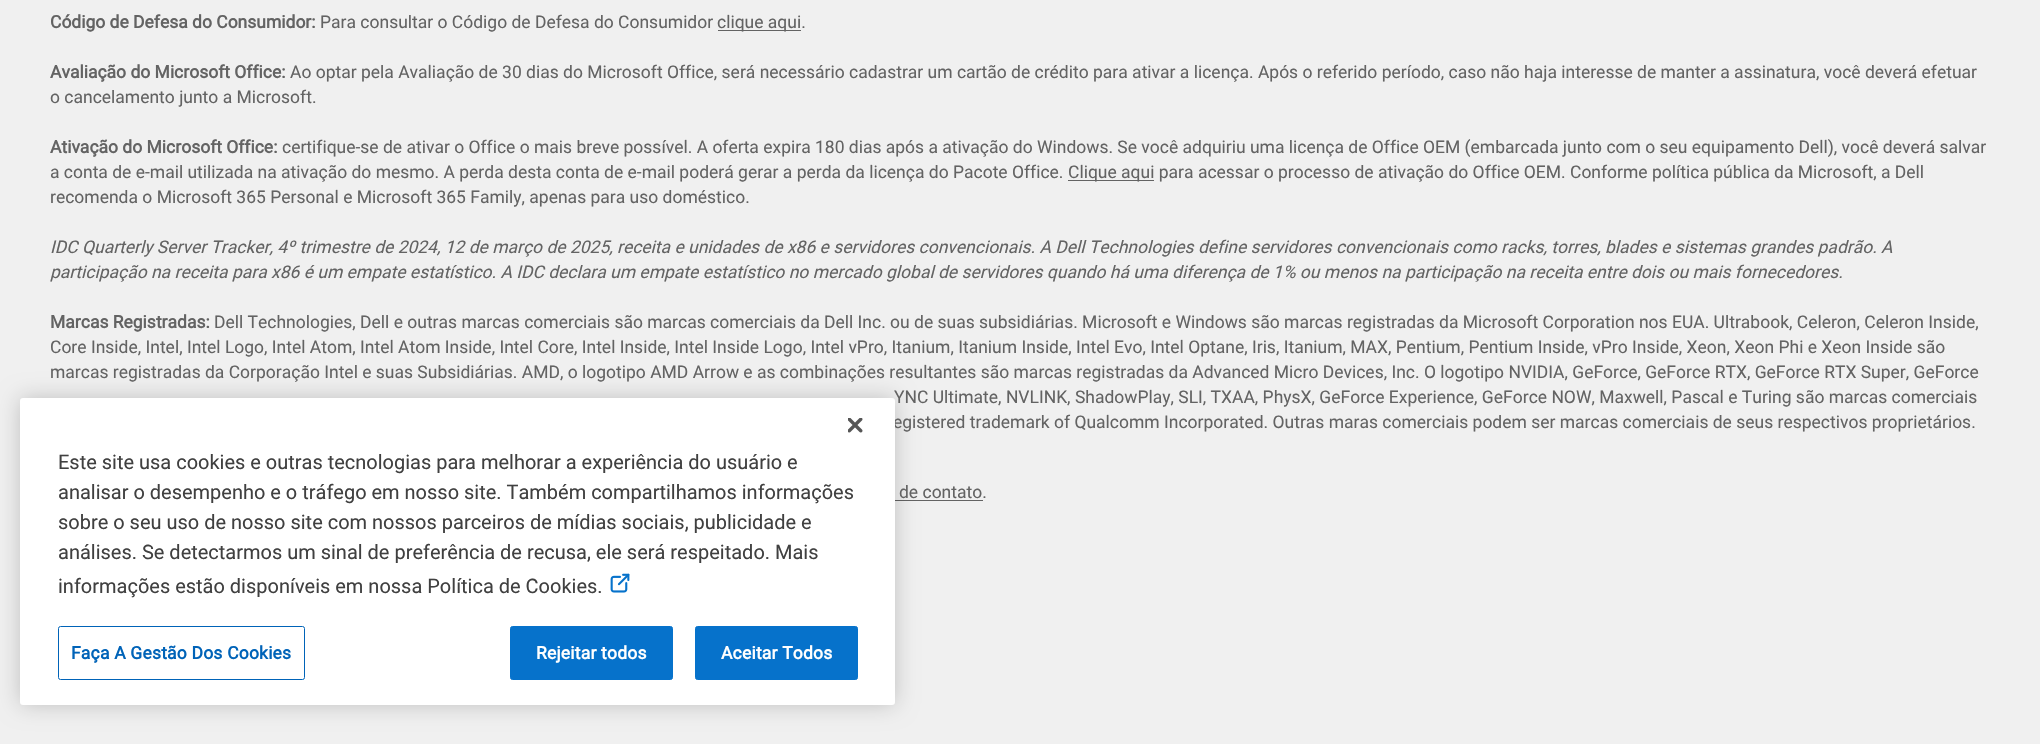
#include "include/core/SkBlurTypes.h"
#include "include/core/SkCanvas.h"
#include "include/core/SkData.h"
#include "include/core/SkFont.h"
#include "include/core/SkFontMgr.h"
#include "include/core/SkImage.h"
#include "include/core/SkMaskFilter.h"
#include "include/core/SkPaint.h"
#include "include/core/SkPathBuilder.h"
#include "include/core/SkTextBlob.h"
#include "include/effects/SkDashPathEffect.h"
#include "include/effects/SkGradientShader.h"
#include "include/utils/SkParsePath.h"

extern sk_sp<SkFontMgr> fontMgr;

void draw(SkCanvas* canvas) {
  SkPaint p;
  p.setAntiAlias(true);
  auto spacedText = [&](const char* s, float x, float y, const SkFont& font, const SkPaint& ink, float letter, float word) {
    std::vector<SkGlyphID> glyphs(font.countText(s, strlen(s), SkTextEncoding::kUTF8));
    std::vector<float> xs(glyphs.size());
    font.textToGlyphs(s, strlen(s), SkTextEncoding::kUTF8, glyphs);
    font.getXPos(glyphs, xs, x);
    float extra = 0;
    for (size_t i = 0; i < glyphs.size(); i++) {
      xs[i] += extra;
      extra += letter + word * (glyphs[i] == font.unicharToGlyph(' '));
    }
    canvas->drawTextBlob(SkTextBlob::MakeFromPosHGlyphs(glyphs, xs, y, font), 0, 0, ink);
  };
  canvas->clear(SkColorSetRGB(240, 240, 240));
  p.setColor(SkColorSetRGB(99, 99, 99));
  canvas->drawRect(SkRect::MakeLTRB(718, 30, 801, 31), p);
  canvas->drawRect(SkRect::MakeLTRB(1068, 180, 1154, 181), p);
  canvas->drawRect(SkRect::MakeLTRB(895, 500, 983, 501), p);
  p.setColor(SkColorSetARGB(51, 0, 0, 0));
  p.setMaskFilter(SkMaskFilter::MakeBlur(kNormal_SkBlurStyle, 11));
  canvas->drawRoundRect(SkRect::MakeLTRB(20, 398, 895, 705), 3, 3, p);
  p.setMaskFilter(nullptr);
  SkFont font1(fontMgr->matchFamilyStyle("Roboto", SkFontStyle::Bold()), 17.5f);
  font1.setSubpixel(true);
  p.setColor(SkColorSetRGB(99, 99, 99));
  canvas->drawString("Código de Defesa do Consumidor:", 50, 28, font1, p);
  SkFont font2(fontMgr->matchFamilyStyle("Roboto", SkFontStyle::Normal()), 17.5f);
  font2.setSubpixel(true);
  canvas->drawString("Para consultar o Código de Defesa do Consumidor", 320, 28, font2, p);
  canvas->drawString("clique aqui.", 717, 28, font2, p);
  canvas->drawString("Avaliação do Microsoft Office:", 50, 78, font1, p);
  canvas->drawString("Ao optar pela Avaliação de 30 dias do Microsoft Office, será necessário cadastrar um cartão de crédito para ativar a licença. Após o referido período, caso não haja interesse de manter a assinatura, você deverá efetuar", 290, 78, font2, p);
  canvas->drawString("o cancelamento junto a Microsoft.", 50, 103, font2, p);
  canvas->drawString("Ativação do Microsoft Office:", 50, 153, font1, p);
  canvas->drawString("certifique-se de ativar o Office o mais breve possível. A oferta expira 180 dias após a ativação do Windows. Se você adquiriu uma licença de Office OEM (embarcada junto com o seu equipamento Dell), você deverá salvar", 282, 153, font2, p);
  canvas->drawString("a conta de e-mail utilizada na ativação do mesmo. A perda desta conta de e-mail poderá gerar a perda da licença do Pacote Office.", 50, 178, font2, p);
  canvas->drawString("Clique aqui para acessar o processo de ativação do Office OEM. Conforme política pública da Microsoft, a Dell", 1068, 178, font2, p);
  canvas->drawString("recomenda o Microsoft 365 Personal e Microsoft 365 Family, apenas para uso doméstico.", 50, 203, font2, p);
  SkFont font3(fontMgr->matchFamilyStyle("Roboto", SkFontStyle::Italic()), 17.5f);
  font3.setSubpixel(true);
  canvas->drawString("IDC Quarterly Server Tracker, 4º trimestre de 2024, 12 de março de 2025, receita e unidades de x86 e servidores convencionais. A Dell Technologies define servidores convencionais como racks, torres, blades e sistemas grandes padrão. A", 50, 253, font3, p);
  canvas->drawString("participação na receita para x86 é um empate estatístico. A IDC declara um empate estatístico no mercado global de servidores quando há uma diferença de 1% ou menos na participação na receita entre dois ou mais fornecedores.", 50, 278, font3, p);
  canvas->drawString("Marcas Registradas:", 50, 328, font1, p);
  canvas->drawString("Dell Technologies, Dell e outras marcas comerciais são marcas comerciais da Dell Inc. ou de suas subsidiárias. Microsoft e Windows são marcas registradas da Microsoft Corporation nos EUA. Ultrabook, Celeron, Celeron Inside,", 214, 328, font2, p);
  canvas->drawString("Core Inside, Intel, Intel Logo, Intel Atom, Intel Atom Inside, Intel Core, Intel Inside, Intel Inside Logo, Intel vPro, Itanium, Itanium Inside, Intel Evo, Intel Optane, Iris, Itanium, MAX, Pentium, Pentium Inside, vPro Inside, Xeon, Xeon Phi e Xeon Inside são", 50, 353, font2, p);
  canvas->drawString("marcas registradas da Corporação Intel e suas Subsidiárias. AMD, o logotipo AMD Arrow e as combinações resultantes são marcas registradas da Advanced Micro Devices, Inc. O logotipo NVIDIA, GeForce, GeForce RTX, GeForce RTX Super, GeForce", 50, 378, font2, p);
  canvas->drawString("YNC Ultimate, NVLINK, ShadowPlay, SLI, TXAA, PhysX, GeForce Experience, GeForce NOW, Maxwell, Pascal e Turing são marcas comerciais", 894, 403, font2, p);
  canvas->drawString("egistered trademark of Qualcomm Incorporated. Outras maras comerciais podem ser marcas comerciais de seus respectivos proprietários.", 893, 428, font2, p);
  canvas->drawString("de contato.", 899, 498, font2, p);
  p.setColor(SK_ColorWHITE);
  canvas->drawRoundRect(SkRect::MakeLTRB(20, 398, 895, 705), 3, 3, p);
  canvas->drawImageRect(SkImages::DeferredFromEncodedData(SkData::MakeFromFileName("images/1.png")), SkRect::MakeLTRB(848, 418, 863, 433), SkSamplingOptions());
  SkFont font4(fontMgr->matchFamilyStyle("Roboto", SkFontStyle::Normal()), 20);
  font4.setSubpixel(true);
  p.setColor(SkColorSetRGB(64, 64, 64));
  canvas->drawString("Este site usa cookies e outras tecnologias para melhorar a experiência do usuário e", 58, 469, font4, p);
  canvas->drawString("analisar o desempenho e o tráfego em nosso site. Também compartilhamos informações", 58, 499, font4, p);
  canvas->drawString("sobre o seu uso de nosso site com nossos parceiros de mídias sociais, publicidade e", 58, 529, font4, p);
  canvas->drawString("análises. Se detectarmos um sinal de preferência de recusa, ele será respeitado. Mais", 58, 559, font4, p);
  canvas->drawString("informações estão disponíveis em nossa Política de Cookies.", 58, 593, font4, p);
  canvas->drawImageRect(SkImages::DeferredFromEncodedData(SkData::MakeFromFileName("images/2.png")), SkRect::MakeLTRB(610, 573, 630, 593), SkSamplingOptions());
  p.setStyle(SkPaint::kStroke_Style);
  p.setStrokeWidth(1);
  p.setColor(SkColorSetRGB(0, 99, 184));
  canvas->drawRoundRect(SkRect::MakeLTRB(58.5f, 626.5f, 304.5f, 679.5f), 2, 2, p);
  p.setStyle(SkPaint::kFill_Style);
  spacedText("Faça A Gestão Dos Cookies", 71, 659, font1, p, 0.2f, 0);
  p.setColor(SkColorSetRGB(6, 114, 203));
  canvas->drawRoundRect(SkRect::MakeLTRB(510.5f, 626.5f, 672.5f, 679.5f), 2, 2, p);
  p.setStyle(SkPaint::kStroke_Style);
  canvas->drawRoundRect(SkRect::MakeLTRB(510.5f, 626.5f, 672.5f, 679.5f), 2, 2, p);
  p.setStyle(SkPaint::kFill_Style);
  p.setColor(SK_ColorWHITE);
  spacedText("Rejeitar todos", 536, 659, font1, p, 0.2f, 0);
  p.setColor(SkColorSetRGB(6, 114, 203));
  canvas->drawRoundRect(SkRect::MakeLTRB(695.5f, 626.5f, 857.5f, 679.5f), 2, 2, p);
  p.setStyle(SkPaint::kStroke_Style);
  canvas->drawRoundRect(SkRect::MakeLTRB(695.5f, 626.5f, 857.5f, 679.5f), 2, 2, p);
  p.setStyle(SkPaint::kFill_Style);
  p.setColor(SK_ColorWHITE);
  spacedText("Aceitar Todos", 721, 659, font1, p, 0.2f, 0);
}
